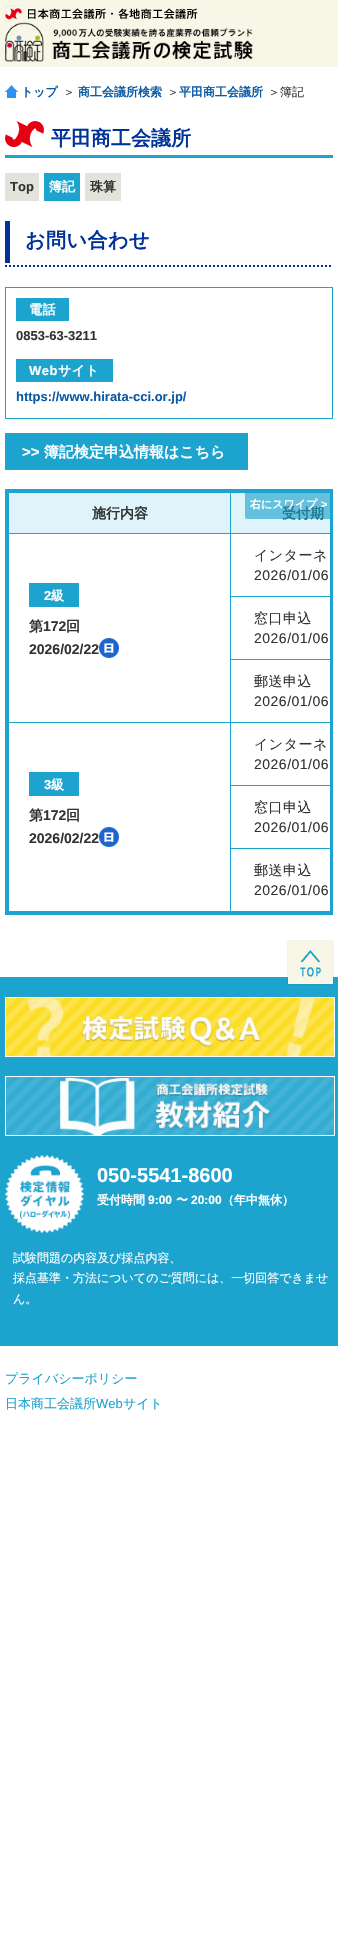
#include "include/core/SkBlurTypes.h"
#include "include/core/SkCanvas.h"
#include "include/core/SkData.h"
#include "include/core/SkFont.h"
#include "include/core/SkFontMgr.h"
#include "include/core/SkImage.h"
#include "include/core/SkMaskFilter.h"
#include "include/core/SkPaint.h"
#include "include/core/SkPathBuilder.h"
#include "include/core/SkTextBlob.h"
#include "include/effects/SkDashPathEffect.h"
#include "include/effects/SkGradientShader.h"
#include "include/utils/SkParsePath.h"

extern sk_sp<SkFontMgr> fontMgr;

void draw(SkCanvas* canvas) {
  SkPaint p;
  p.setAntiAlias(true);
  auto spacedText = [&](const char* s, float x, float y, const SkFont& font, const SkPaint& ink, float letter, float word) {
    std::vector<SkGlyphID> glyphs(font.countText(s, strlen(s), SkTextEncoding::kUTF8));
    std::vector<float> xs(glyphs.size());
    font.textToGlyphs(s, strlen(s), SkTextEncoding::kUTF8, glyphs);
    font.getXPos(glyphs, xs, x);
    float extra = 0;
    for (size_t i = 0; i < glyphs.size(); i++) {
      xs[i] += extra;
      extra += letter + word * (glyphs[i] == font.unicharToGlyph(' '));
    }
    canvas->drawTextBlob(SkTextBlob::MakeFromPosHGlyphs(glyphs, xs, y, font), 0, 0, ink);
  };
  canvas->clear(SK_ColorWHITE);
  p.setColor(SkColorSetRGB(248, 246, 231));
  canvas->drawRect(SkRect::MakeLTRB(0, 0, 338, 67), p);
  canvas->drawImageRect(SkImages::DeferredFromEncodedData(SkData::MakeFromFileName("images/1.png")), SkRect::MakeLTRB(5, 5, 198, 22), SkSamplingOptions());
  canvas->drawImageRect(SkImages::DeferredFromEncodedData(SkData::MakeFromFileName("images/2.png")), SkRect::MakeLTRB(5, 22, 253, 62), SkSamplingOptions());
  canvas->drawImageRect(SkImages::DeferredFromEncodedData(SkData::MakeFromFileName("images/3.png")), SkRect::MakeLTRB(5, 85, 18, 98), SkSamplingOptions());
  canvas->drawImageRect(SkImages::DeferredFromEncodedData(SkData::MakeFromFileName("images/4.png")), SkRect::MakeLTRB(5, 121, 44, 147), SkSamplingOptions());
  p.setColor(SkColorSetRGB(28, 163, 206));
  canvas->drawRect(SkRect::MakeLTRB(5, 155, 333, 158), p);
  p.setColor(SkColorSetRGB(227, 226, 219));
  canvas->drawRect(SkRect::MakeLTRB(5, 173, 39, 201), p);
  p.setColor(SkColorSetRGB(28, 163, 206));
  canvas->drawRect(SkRect::MakeLTRB(44, 173, 80, 201), p);
  p.setColor(SkColorSetRGB(227, 226, 219));
  canvas->drawRect(SkRect::MakeLTRB(85, 173, 121, 201), p);
  p.setStyle(SkPaint::kStroke_Style);
  p.setStrokeWidth(2);
  p.setColor(SkColorSetRGB(0, 51, 153));
  p.setPathEffect(SkDashPathEffect::Make({{2, 2}}, 0));
  canvas->drawPath(SkPathBuilder().moveTo(5, 266).lineTo(333, 266).detach(), p);
  p.setPathEffect(nullptr);
  p.setStyle(SkPaint::kFill_Style);
  canvas->drawRect(SkRect::MakeLTRB(5, 221, 10, 263), p);
  p.setStyle(SkPaint::kStroke_Style);
  p.setStrokeWidth(1);
  p.setColor(SkColorSetRGB(28, 163, 206));
  canvas->drawRect(SkRect::MakeLTRB(5.5f, 287.5f, 332.5f, 418.5f), p);
  p.setStyle(SkPaint::kFill_Style);
  canvas->drawRect(SkRect::MakeLTRB(16, 298, 69, 321), p);
  canvas->drawRect(SkRect::MakeLTRB(16, 359, 113, 382), p);
  canvas->drawRect(SkRect::MakeLTRB(5, 433, 248, 470), p);
  p.setStyle(SkPaint::kStroke_Style);
  p.setStrokeWidth(3);
  canvas->drawRect(SkRect::MakeLTRB(6.5f, 490.5f, 331.5f, 913.5f), p);
  p.setStyle(SkPaint::kFill_Style);
  p.setColor(SkColorSetRGB(223, 244, 250));
  canvas->drawRect(SkRect::MakeLTRB(9, 493, 230, 533), p);
  p.setColor(SkColorSetRGB(28, 163, 206));
  canvas->drawRect(SkRect::MakeLTRB(230, 492, 330, 493), p);
  canvas->drawRect(SkRect::MakeLTRB(230, 533, 330, 534), p);
  canvas->drawRect(SkRect::MakeLTRB(230, 596, 330, 597), p);
  canvas->drawRect(SkRect::MakeLTRB(230, 659, 330, 660), p);
  canvas->drawRect(SkRect::MakeLTRB(230, 722, 330, 723), p);
  canvas->drawRect(SkRect::MakeLTRB(230, 785, 330, 786), p);
  canvas->drawRect(SkRect::MakeLTRB(230, 848, 330, 849), p);
  canvas->drawRect(SkRect::MakeLTRB(230, 911, 330, 912), p);
  canvas->drawRect(SkRect::MakeLTRB(230, 848, 231, 912), p);
  canvas->drawRect(SkRect::MakeLTRB(230, 785, 231, 849), p);
  canvas->drawRect(SkRect::MakeLTRB(230, 722, 231, 786), p);
  canvas->drawRect(SkRect::MakeLTRB(8, 722, 231, 723), p);
  canvas->drawRect(SkRect::MakeLTRB(230, 659, 231, 723), p);
  canvas->drawRect(SkRect::MakeLTRB(230, 596, 231, 660), p);
  canvas->drawRect(SkRect::MakeLTRB(230, 533, 231, 597), p);
  canvas->drawRect(SkRect::MakeLTRB(8, 533, 231, 534), p);
  canvas->drawRect(SkRect::MakeLTRB(230, 492, 231, 534), p);
  canvas->drawRect(SkRect::MakeLTRB(8, 492, 231, 493), p);
  canvas->drawRect(SkRect::MakeLTRB(8, 911, 231, 912), p);
  canvas->drawRect(SkRect::MakeLTRB(8, 722, 9, 912), p);
  canvas->drawRect(SkRect::MakeLTRB(8, 533, 9, 723), p);
  canvas->drawRect(SkRect::MakeLTRB(8, 492, 9, 534), p);
  p.setColor(SkColorSetRGB(223, 244, 250));
  canvas->drawRect(SkRect::MakeLTRB(231, 493, 330, 533), p);
  p.setColor(SkColorSetRGB(28, 163, 206));
  canvas->drawRect(SkRect::MakeLTRB(29, 583, 79, 607), p);
  canvas->drawImageRect(SkImages::DeferredFromEncodedData(SkData::MakeFromFileName("images/5.png")), SkRect::MakeLTRB(99, 638, 119, 658), SkSamplingOptions());
  canvas->drawRect(SkRect::MakeLTRB(29, 772, 79, 796), p);
  canvas->drawImageRect(SkImages::DeferredFromEncodedData(SkData::MakeFromFileName("images/5.png")), SkRect::MakeLTRB(99, 827, 119, 847), SkSamplingOptions());
  canvas->drawRect(SkRect::MakeLTRB(0, 977, 338, 1346), p);
  p.setColor(SkColorSetARGB(77, 7, 0, 0));
  p.setMaskFilter(SkMaskFilter::MakeBlur(kNormal_SkBlurStyle, 0.5f));
  canvas->drawRect(SkRect::MakeLTRB(288, 941, 333, 984), p);
  p.setMaskFilter(nullptr);
  p.setColor(SkColorSetRGB(248, 246, 231));
  canvas->drawRect(SkRect::MakeLTRB(288, 941, 333, 984), p);
  canvas->drawImageRect(SkImages::DeferredFromEncodedData(SkData::MakeFromFileName("images/6.png")), SkRect::MakeLTRB(300, 950, 321, 977), SkSamplingOptions());
  p.setStyle(SkPaint::kStroke_Style);
  p.setStrokeWidth(1);
  p.setColor(SK_ColorWHITE);
  canvas->drawRect(SkRect::MakeLTRB(5.5f, 997.5f, 334.5f, 1056.5f), p);
  canvas->drawImageRect(SkImages::DeferredFromEncodedData(SkData::MakeFromFileName("images/7.png")), SkRect::MakeLTRB(6, 998, 334, 1056), SkSamplingOptions());
  canvas->drawRect(SkRect::MakeLTRB(5.5f, 1076.5f, 334.5f, 1135.5f), p);
  canvas->drawImageRect(SkImages::DeferredFromEncodedData(SkData::MakeFromFileName("images/8.png")), SkRect::MakeLTRB(6, 1077, 334, 1135), SkSamplingOptions());
  canvas->drawImageRect(SkImages::DeferredFromEncodedData(SkData::MakeFromFileName("images/9.png")), SkRect::MakeLTRB(5, 1155, 84, 1233), SkSamplingOptions());
  SkFont font1(fontMgr->matchFamilyStyle("WenQuanYi Zen Hei", SkFontStyle::Bold()), 12);
  font1.setSubpixel(true);
  p.setStyle(SkPaint::kFill_Style);
  p.setColor(SkColorSetRGB(10, 89, 163));
  canvas->drawString("トップ", 21, 96, font1, p);
  SkFont font2(fontMgr->matchFamilyStyle("WenQuanYi Zen Hei", SkFontStyle(500, SkFontStyle::kNormal_Width, SkFontStyle::kUpright_Slant)), 12);
  font2.setSubpixel(true);
  p.setColor(SkColorSetRGB(51, 51, 51));
  canvas->drawString("＞", 63, 96, font2, p);
  p.setColor(SkColorSetRGB(10, 89, 163));
  canvas->drawString("商工会議所検索", 78, 96, font1, p);
  p.setColor(SkColorSetRGB(51, 51, 51));
  canvas->drawString("＞", 167, 96, font2, p);
  p.setColor(SkColorSetRGB(10, 89, 163));
  canvas->drawString("平田商工会議所", 179, 96, font1, p);
  p.setColor(SkColorSetRGB(51, 51, 51));
  canvas->drawString("＞簿記", 268, 96, font2, p);
  SkFont font3(fontMgr->matchFamilyStyle("WenQuanYi Zen Hei", SkFontStyle::Bold()), 20);
  font3.setSubpixel(true);
  p.setColor(SkColorSetRGB(0, 51, 153));
  canvas->drawString("平田商工会議所", 51, 145, font3, p);
  SkFont font4(fontMgr->matchFamilyStyle("Liberation Sans", SkFontStyle::Bold()), 13);
  font4.setSubpixel(true);
  p.setColor(SkColorSetRGB(51, 51, 51));
  canvas->drawString("Top", 10, 191, font4, p);
  SkFont font5(fontMgr->matchFamilyStyle("WenQuanYi Zen Hei", SkFontStyle::Bold()), 13);
  font5.setSubpixel(true);
  p.setColor(SK_ColorWHITE);
  canvas->drawString("簿記", 49, 191, font5, p);
  p.setColor(SkColorSetRGB(51, 51, 51));
  canvas->drawString("珠算", 90, 191, font5, p);
  p.setColor(SkColorSetRGB(0, 51, 153));
  spacedText("お問い合わせ", 25, 247, font3, p, 0.5f, 0);
  p.setColor(SK_ColorWHITE);
  spacedText("電話", 29, 314, font5, p, 0.5f, 0);
  p.setColor(SkColorSetRGB(51, 51, 51));
  canvas->drawString("0853-63-3211", 16, 340, font4, p);
  p.setColor(SK_ColorWHITE);
  spacedText("Web", 29, 375, font4, p, 0.5f, 0);
  spacedText("サイト", 58, 375, font5, p, 0.5f, 0);
  p.setColor(SkColorSetRGB(10, 89, 163));
  canvas->drawString("https://www.hirata-cci.or.jp/", 16, 401, font4, p);
  SkFont font6(fontMgr->matchFamilyStyle("Liberation Sans", SkFontStyle::Bold()), 15);
  font6.setSubpixel(true);
  p.setColor(SK_ColorWHITE);
  canvas->drawString(">>", 22, 457, font6, p);
  SkFont font7(fontMgr->matchFamilyStyle("WenQuanYi Zen Hei", SkFontStyle::Bold()), 15);
  font7.setSubpixel(true);
  canvas->drawString("簿記検定申込情報はこちら", 44, 457, font7, p);
  SkFont font8(fontMgr->matchFamilyStyle("WenQuanYi Zen Hei", SkFontStyle::Bold()), 14);
  font8.setSubpixel(true);
  p.setColor(SkColorSetRGB(51, 51, 51));
  canvas->drawString("施行内容", 92, 518, font8, p);
  canvas->drawString("受付期", 282, 518, font8, p);
  p.setColor(SkColorSetARGB(161, 28, 163, 206));
  canvas->drawPath(SkPathBuilder().moveTo(247, 490).lineTo(332, 490).lineTo(332, 519).lineTo(247, 519).cubicTo(246, 519, 245, 518, 245, 517).lineTo(245, 492).cubicTo(245, 491, 246, 490, 247, 490).close().detach(), p);
  SkFont font9(fontMgr->matchFamilyStyle("Liberation Sans", SkFontStyle::Bold()), 11);
  font9.setSubpixel(true);
  p.setColor(SK_ColorWHITE);
  canvas->drawString(">", 321, 508, font9, p);
  SkFont font10(fontMgr->matchFamilyStyle("WenQuanYi Zen Hei", SkFontStyle::Bold()), 11);
  font10.setSubpixel(true);
  canvas->drawString("右にスワイプ", 250, 508, font10, p);
  SkFont font11(fontMgr->matchFamilyStyle("WenQuanYi Zen Hei", SkFontStyle(500, SkFontStyle::kNormal_Width, SkFontStyle::kUpright_Slant)), 14);
  font11.setSubpixel(true);
  p.setColor(SkColorSetRGB(51, 51, 51));
  spacedText("インターネ", 254, 560, font11, p, 0.5f, 0);
  SkFont font12(fontMgr->matchFamilyStyle("Liberation Sans", SkFontStyle::Normal()), 14);
  font12.setSubpixel(true);
  spacedText("2026/01/06", 254, 580, font12, p, 0.5f, 0);
  p.setColor(SK_ColorWHITE);
  canvas->drawString("2", 44, 600, font4, p);
  canvas->drawString("級", 51, 600, font5, p);
  p.setColor(SkColorSetRGB(51, 51, 51));
  canvas->drawString("第", 29, 631, font8, p);
  SkFont font13(fontMgr->matchFamilyStyle("Liberation Sans", SkFontStyle::Bold()), 14);
  font13.setSubpixel(true);
  canvas->drawString("172", 43, 631, font13, p);
  canvas->drawString("回", 66, 631, font8, p);
  canvas->drawString("2026/02/22", 29, 654, font13, p);
  spacedText("窓口申込", 254, 623, font11, p, 0.5f, 0);
  spacedText("2026/01/06", 254, 643, font12, p, 0.5f, 0);
  spacedText("郵送申込", 254, 686, font11, p, 0.5f, 0);
  spacedText("2026/01/06", 254, 706, font12, p, 0.5f, 0);
  spacedText("インターネ", 254, 749, font11, p, 0.5f, 0);
  spacedText("2026/01/06", 254, 769, font12, p, 0.5f, 0);
  p.setColor(SK_ColorWHITE);
  canvas->drawString("3", 44, 789, font4, p);
  canvas->drawString("級", 51, 789, font5, p);
  p.setColor(SkColorSetRGB(51, 51, 51));
  canvas->drawString("第", 29, 820, font8, p);
  canvas->drawString("172", 43, 820, font13, p);
  canvas->drawString("回", 66, 820, font8, p);
  canvas->drawString("2026/02/22", 29, 843, font13, p);
  spacedText("窓口申込", 254, 812, font11, p, 0.5f, 0);
  spacedText("2026/01/06", 254, 832, font12, p, 0.5f, 0);
  spacedText("郵送申込", 254, 875, font11, p, 0.5f, 0);
  spacedText("2026/01/06", 254, 895, font12, p, 0.5f, 0);
  SkFont font14(fontMgr->matchFamilyStyle("Liberation Sans", SkFontStyle::Bold()), 20);
  font14.setSubpixel(true);
  p.setColor(SK_ColorWHITE);
  canvas->drawString("050-5541-8600", 97, 1182, font14, p);
  canvas->drawString("受付時間", 97, 1204, font1, p);
  SkFont font15(fontMgr->matchFamilyStyle("Liberation Sans", SkFontStyle::Bold()), 12);
  font15.setSubpixel(true);
  canvas->drawString("9:00", 148, 1204, font15, p);
  canvas->drawString("〜", 176, 1204, font1, p);
  canvas->drawString("20:00", 191, 1204, font15, p);
  canvas->drawString("（年中無休）", 222, 1204, font1, p);
  canvas->drawString("試験問題の内容及び採点内容、", 13, 1262, font2, p);
  canvas->drawString("採点基準・方法についてのご質問には、一切回答できませ", 13, 1282, font2, p);
  canvas->drawString("ん。", 13, 1303, font2, p);
  SkFont font16(fontMgr->matchFamilyStyle("WenQuanYi Zen Hei", SkFontStyle(500, SkFontStyle::kNormal_Width, SkFontStyle::kUpright_Slant)), 13);
  font16.setSubpixel(true);
  p.setColor(SkColorSetRGB(28, 163, 206));
  canvas->drawString("プライバシーポリシー", 5, 1383, font16, p);
  canvas->drawString("日本商工会議所", 5, 1408, font16, p);
  SkFont font17(fontMgr->matchFamilyStyle("Liberation Sans", SkFontStyle::Normal()), 13);
  font17.setSubpixel(true);
  canvas->drawString("Web", 96, 1408, font17, p);
  canvas->drawString("サイト", 123, 1408, font16, p);
}
